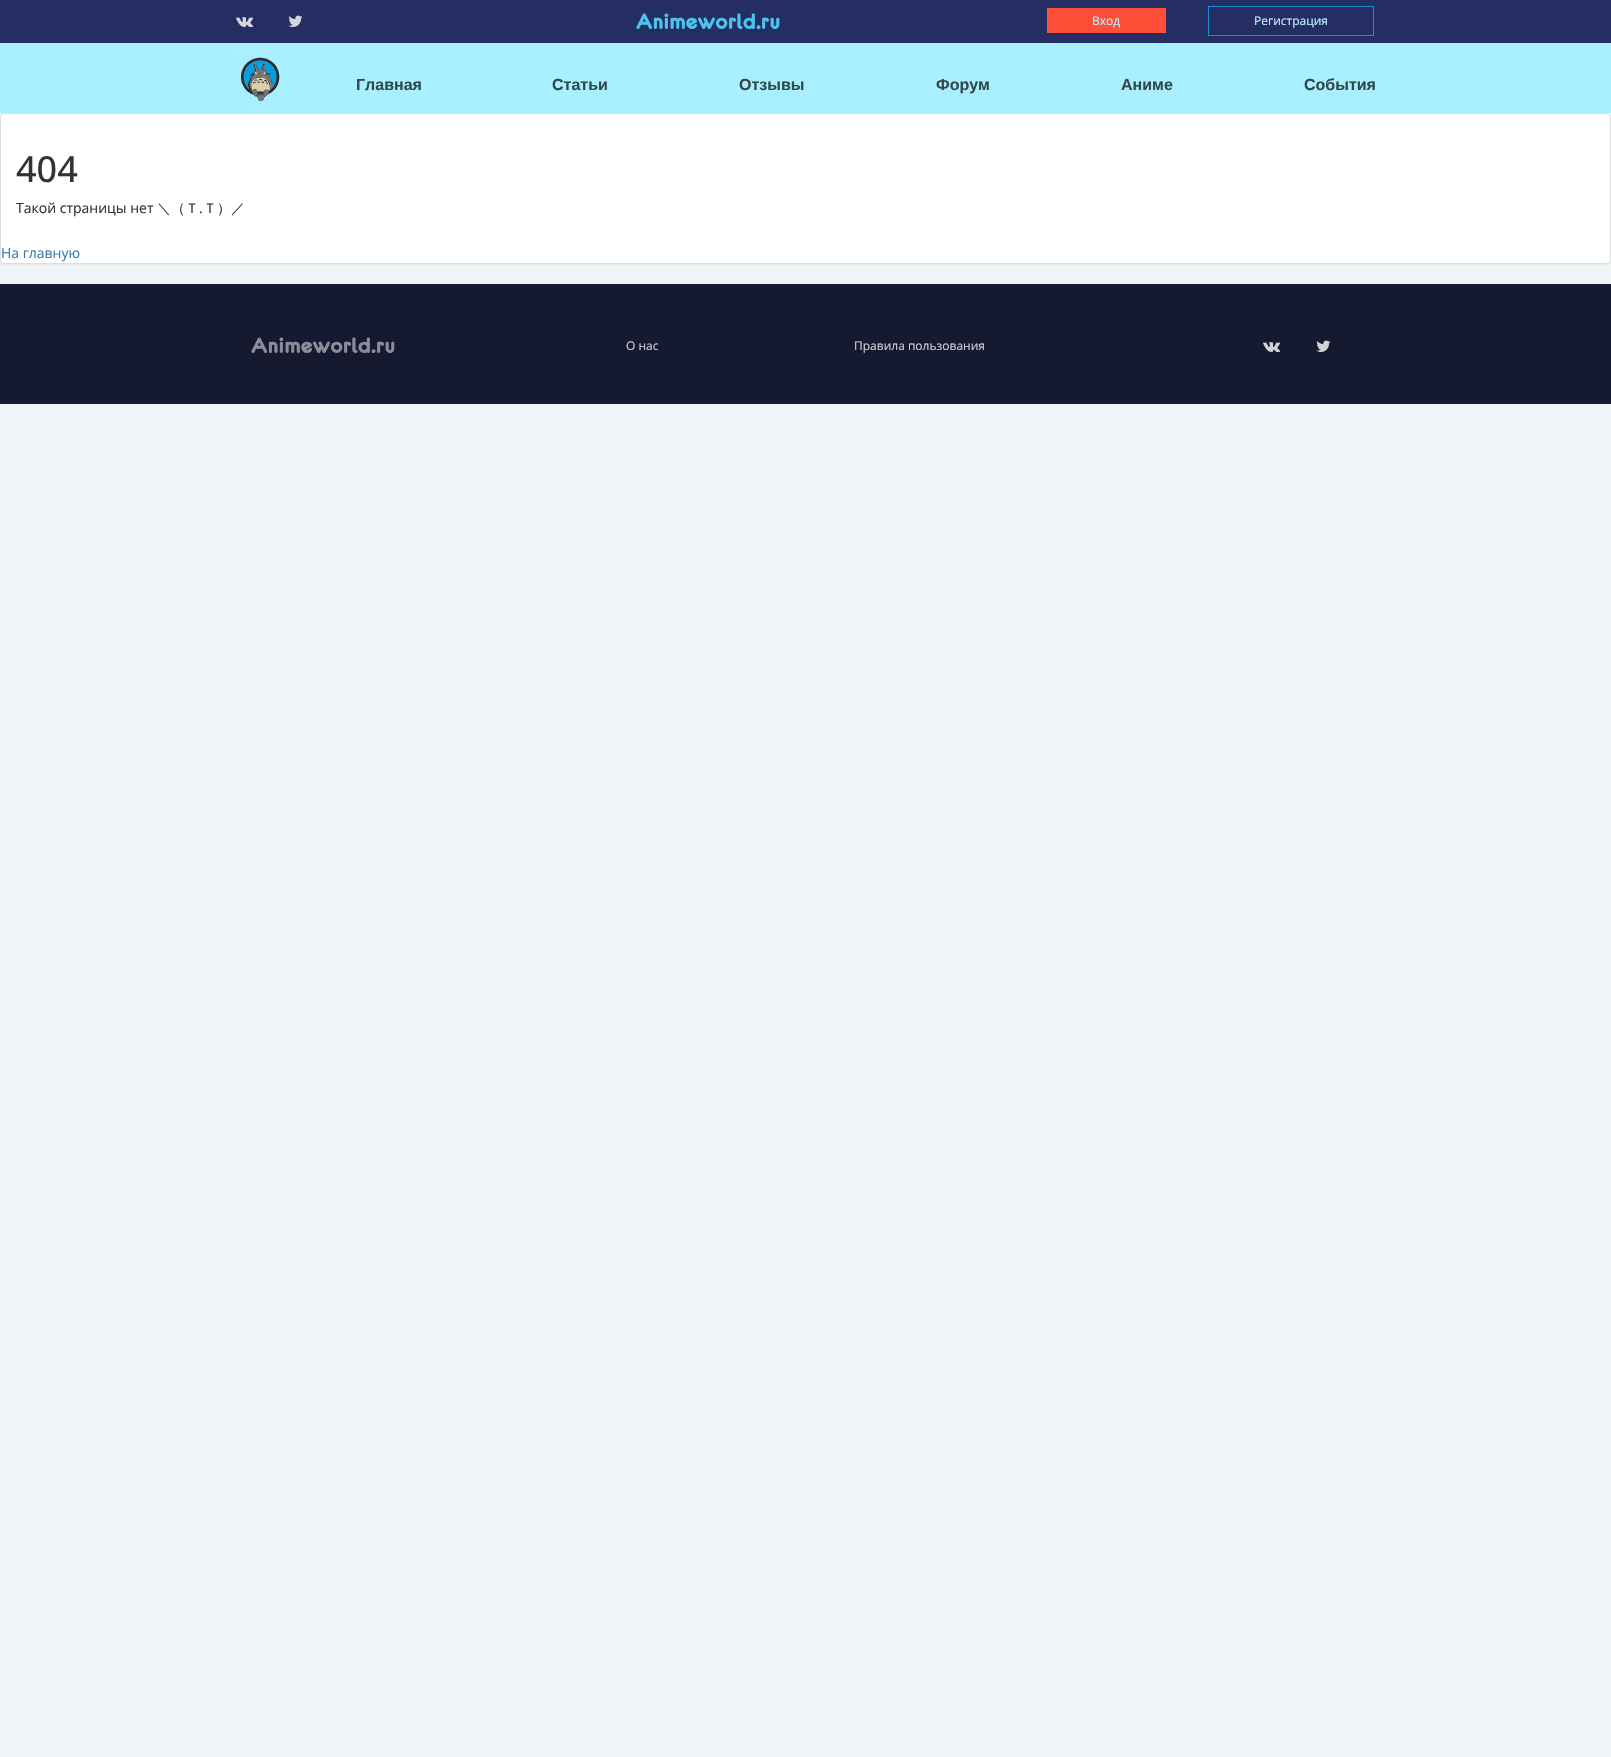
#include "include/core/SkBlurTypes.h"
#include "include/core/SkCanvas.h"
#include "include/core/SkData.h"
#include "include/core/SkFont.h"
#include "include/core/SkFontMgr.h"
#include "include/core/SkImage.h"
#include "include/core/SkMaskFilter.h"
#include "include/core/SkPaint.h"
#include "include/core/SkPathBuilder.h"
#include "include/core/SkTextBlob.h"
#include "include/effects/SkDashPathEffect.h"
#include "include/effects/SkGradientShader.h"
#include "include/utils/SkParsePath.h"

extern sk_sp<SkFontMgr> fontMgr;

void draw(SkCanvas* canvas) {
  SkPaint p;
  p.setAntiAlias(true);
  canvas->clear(SkColorSetRGB(240, 245, 247));
  p.setColor(SkColorSetRGB(37, 46, 98));
  canvas->drawRect(SkRect::MakeLTRB(0, 0, 1611, 43), p);
  canvas->drawImageRect(SkImages::DeferredFromEncodedData(SkData::MakeFromFileName("images/1.png")), SkRect::MakeLTRB(236, 17, 254, 27), SkSamplingOptions());
  canvas->drawImageRect(SkImages::DeferredFromEncodedData(SkData::MakeFromFileName("images/2.png")), SkRect::MakeLTRB(288, 15, 303, 27), SkSamplingOptions());
  p.setColor(SkColorSetRGB(255, 79, 56));
  canvas->drawRect(SkRect::MakeLTRB(1047, 8, 1166, 33), p);
  p.setStyle(SkPaint::kStroke_Style);
  p.setStrokeWidth(1);
  p.setColor(SkColorSetRGB(27, 139, 218));
  canvas->drawRect(SkRect::MakeLTRB(1208.5f, 6.5f, 1373.5f, 35.5f), p);
  p.setStyle(SkPaint::kFill_Style);
  p.setColor(SkColorSetRGB(168, 239, 255));
  canvas->drawRect(SkRect::MakeLTRB(0, 43, 1611, 113), p);
  canvas->drawImageRect(SkImages::DeferredFromEncodedData(SkData::MakeFromFileName("images/3.png")), SkRect::MakeLTRB(240, 57, 280, 101), SkSamplingOptions());
  p.setColor(SkColorSetARGB(13, 0, 0, 0));
  p.setMaskFilter(SkMaskFilter::MakeBlur(kNormal_SkBlurStyle, 0.5f));
  canvas->drawRoundRect(SkRect::MakeLTRB(0, 114, 1611, 265), 4, 4, p);
  p.setMaskFilter(nullptr);
  p.setColor(SK_ColorWHITE);
  canvas->drawRoundRect(SkRect::MakeLTRB(0.5f, 113.5f, 1610.5f, 263.5f), 3.5f, 3.5f, p);
  p.setStyle(SkPaint::kStroke_Style);
  p.setColor(SkColorSetRGB(221, 221, 221));
  canvas->drawRoundRect(SkRect::MakeLTRB(0.5f, 113.5f, 1610.5f, 263.5f), 3.5f, 3.5f, p);
  p.setStyle(SkPaint::kFill_Style);
  p.setColor(SkColorSetRGB(22, 26, 48));
  canvas->drawRect(SkRect::MakeLTRB(0, 284, 1611, 404), p);
  canvas->drawImageRect(SkImages::DeferredFromEncodedData(SkData::MakeFromFileName("images/4.png")), SkRect::MakeLTRB(1263, 342, 1281, 352), SkSamplingOptions());
  canvas->drawImageRect(SkImages::DeferredFromEncodedData(SkData::MakeFromFileName("images/5.png")), SkRect::MakeLTRB(1316, 340, 1331, 352), SkSamplingOptions());
  SkFont font1(fontMgr->matchFamilyStyle("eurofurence", SkFontStyle::Bold()), 24);
  font1.setSubpixel(true);
  p.setColor(SkColorSetRGB(76, 196, 236));
  canvas->drawString("Animeworld.ru", 636, 29, font1, p);
  SkFont font2(fontMgr->matchFamilyStyle("Open Sans", SkFontStyle::Normal()), 12);
  font2.setSubpixel(true);
  p.setColor(SkColorSetRGB(190, 238, 255));
  canvas->drawString("Вход", 1092, 25, font2, p);
  canvas->drawString("Регистрация", 1254, 25, font2, p);
  SkFont font3(fontMgr->matchFamilyStyle("Liberation Sans", SkFontStyle::Bold()), 16);
  font3.setSubpixel(true);
  p.setColor(SkColorSetRGB(50, 72, 77));
  canvas->drawString("Главная", 356, 90, font3, p);
  canvas->drawString("Статьи", 552, 90, font3, p);
  canvas->drawString("Отзывы", 739, 90, font3, p);
  canvas->drawString("Форум", 936, 90, font3, p);
  canvas->drawString("Аниме", 1121, 90, font3, p);
  canvas->drawString("События", 1304, 90, font3, p);
  SkFont font4(fontMgr->matchFamilyStyle("Open Sans", SkFontStyle(500, SkFontStyle::kNormal_Width, SkFontStyle::kUpright_Slant)), 36);
  font4.setSubpixel(true);
  p.setColor(SkColorSetRGB(51, 51, 51));
  canvas->drawString("404", 16, 182, font4, p);
  SkFont font5(fontMgr->matchFamilyStyle("Open Sans", SkFontStyle::Normal()), 14);
  font5.setSubpixel(true);
  canvas->drawString("Такой страницы нет", 16, 213, font5, p);
  SkFont font6(fontMgr->matchFamilyStyle("WenQuanYi Zen Hei", SkFontStyle(500, SkFontStyle::kNormal_Width, SkFontStyle::kUpright_Slant)), 14);
  font6.setSubpixel(true);
  canvas->drawString("＼（Ｔ", 157, 213, font6, p);
  canvas->drawString(".", 199, 213, font5, p);
  canvas->drawString("Ｔ）／", 203, 213, font6, p);
  p.setColor(SkColorSetRGB(51, 122, 183));
  canvas->drawString("На главную", 1, 258, font5, p);
  p.setColor(SkColorSetRGB(139, 141, 152));
  canvas->drawString("Animeworld.ru", 251, 353, font1, p);
  p.setColor(SkColorSetRGB(208, 209, 214));
  canvas->drawString("О нас", 626, 350, font2, p);
  canvas->drawString("Правила пользования", 854, 350, font2, p);
}
